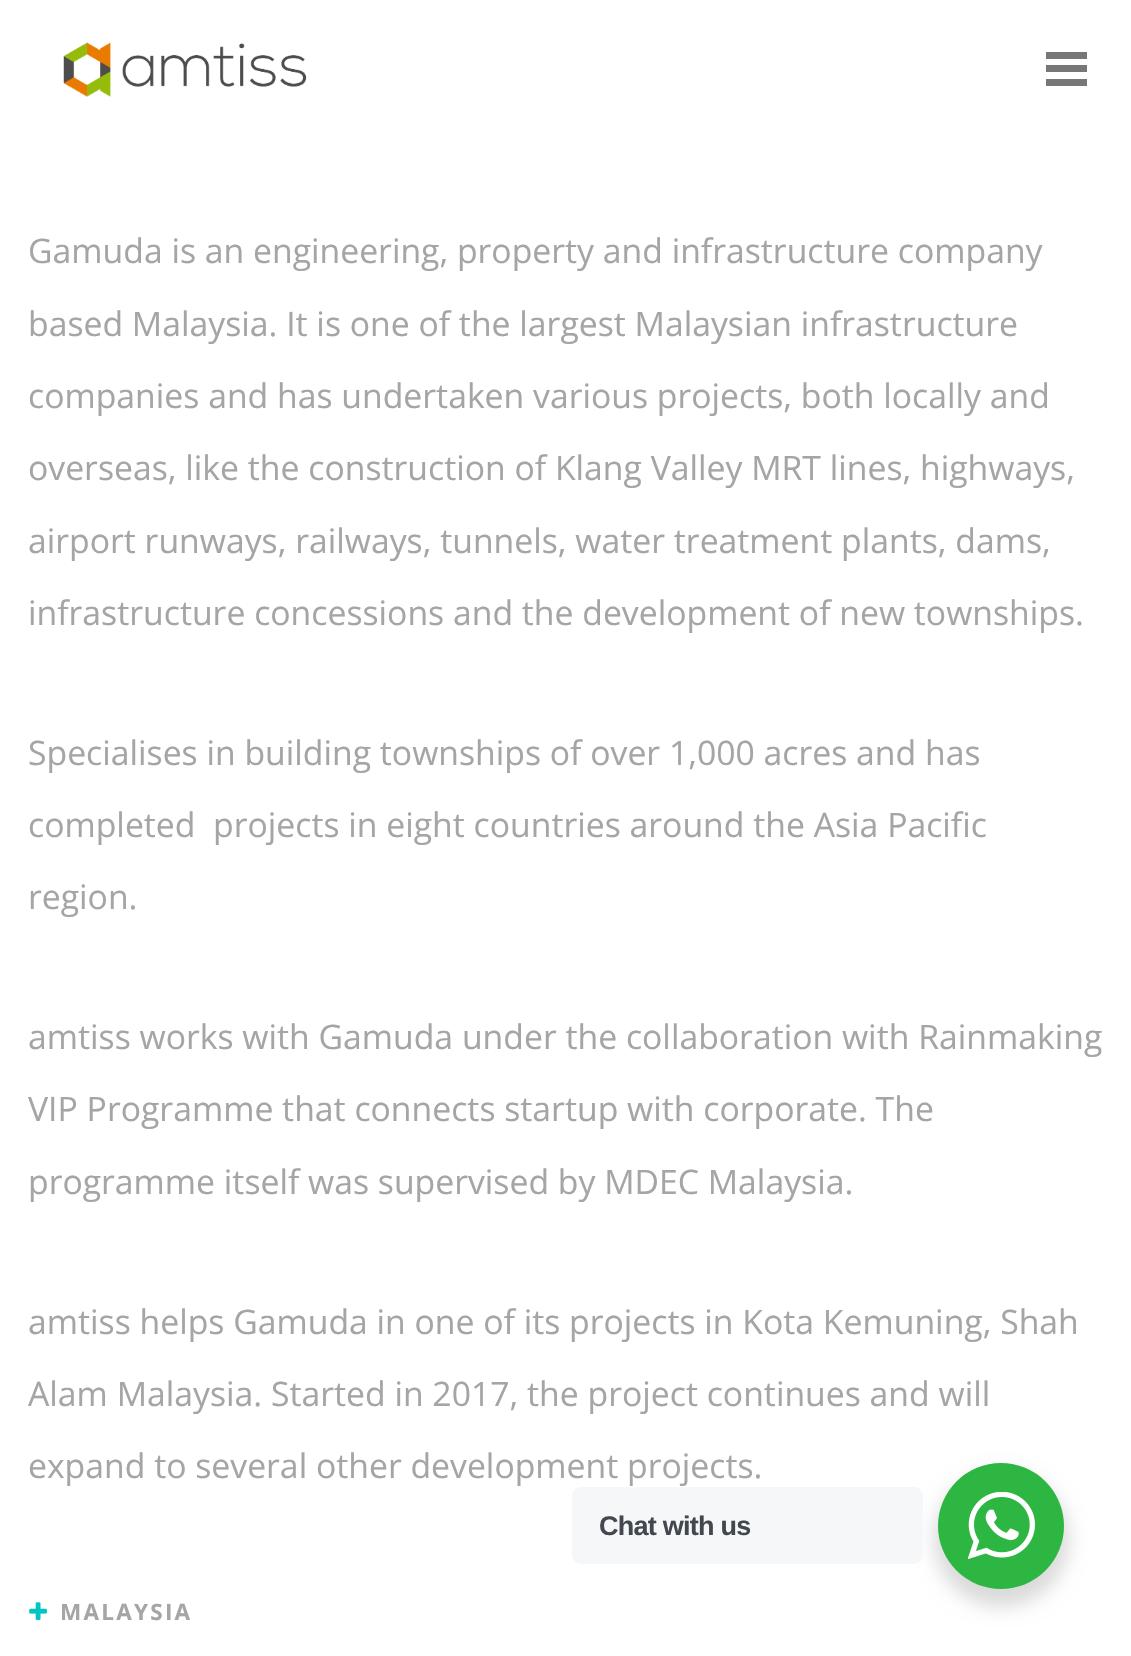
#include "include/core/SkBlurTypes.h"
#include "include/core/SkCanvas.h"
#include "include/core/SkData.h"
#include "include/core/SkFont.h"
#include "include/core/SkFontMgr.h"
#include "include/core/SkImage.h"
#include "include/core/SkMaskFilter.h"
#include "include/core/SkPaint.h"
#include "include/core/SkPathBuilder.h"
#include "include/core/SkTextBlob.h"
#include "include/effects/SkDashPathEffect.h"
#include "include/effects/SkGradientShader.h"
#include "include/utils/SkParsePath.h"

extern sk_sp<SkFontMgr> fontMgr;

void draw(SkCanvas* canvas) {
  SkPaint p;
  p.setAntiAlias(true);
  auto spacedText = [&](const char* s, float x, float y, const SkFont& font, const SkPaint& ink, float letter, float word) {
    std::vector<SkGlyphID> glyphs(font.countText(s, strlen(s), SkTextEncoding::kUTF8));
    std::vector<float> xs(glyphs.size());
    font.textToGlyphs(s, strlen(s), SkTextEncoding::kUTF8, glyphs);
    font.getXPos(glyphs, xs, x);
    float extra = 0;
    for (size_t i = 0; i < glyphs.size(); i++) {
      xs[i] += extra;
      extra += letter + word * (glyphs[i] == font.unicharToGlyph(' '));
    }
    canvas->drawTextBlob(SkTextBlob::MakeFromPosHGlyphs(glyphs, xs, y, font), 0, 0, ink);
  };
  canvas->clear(SK_ColorWHITE);
  canvas->drawImageRect(SkImages::DeferredFromEncodedData(SkData::MakeFromFileName("images/1.png")), SkRect::MakeLTRB(63, 42, 307, 97), SkSamplingOptions());
  p.setColor(SkColorSetRGB(119, 119, 119));
  canvas->drawRect(SkRect::MakeLTRB(1046, 52, 1087, 59), p);
  canvas->drawRect(SkRect::MakeLTRB(1046, 65, 1087, 72), p);
  canvas->drawRect(SkRect::MakeLTRB(1046, 79, 1087, 86), p);
  canvas->drawImageRect(SkImages::DeferredFromEncodedData(SkData::MakeFromFileName("images/2.png")), SkRect::MakeLTRB(29, 1602, 47, 1620), SkSamplingOptions());
  p.setColor(SkColorSetARGB(36, 0, 0, 0));
  p.setMaskFilter(SkMaskFilter::MakeBlur(kNormal_SkBlurStyle, 9));
  canvas->drawRoundRect(SkRect::MakeLTRB(934, 1472, 1069, 1607), 67.5f, 67.5f, p);
  p.setMaskFilter(nullptr);
  p.setColor(SkColorSetRGB(245, 247, 249));
  canvas->drawRoundRect(SkRect::MakeLTRB(572, 1487, 923, 1564), 9, 9, p);
  p.setColor(SkColorSetRGB(45, 183, 66));
  canvas->drawCircle(1001, 1526, 63, p);
  canvas->drawImageRect(SkImages::DeferredFromEncodedData(SkData::MakeFromFileName("images/3.png")), SkRect::MakeLTRB(968, 1492, 1035, 1559), SkSamplingOptions());
  SkFont font1(fontMgr->matchFamilyStyle("Open Sans", SkFontStyle::Normal()), 33.75f);
  font1.setSubpixel(true);
  p.setColor(SkColorSetRGB(165, 165, 165));
  canvas->drawString("Gamuda is an engineering, property and infrastructure company", 28, 263, font1, p);
  canvas->drawString("based Malaysia. It is one of the largest Malaysian infrastructure", 28, 336, font1, p);
  canvas->drawString("companies and has undertaken various projects, both locally and", 28, 408, font1, p);
  canvas->drawString("overseas, like the construction of Klang Valley MRT lines, highways,", 28, 480, font1, p);
  canvas->drawString("airport runways, railways, tunnels, water treatment plants, dams,", 28, 553, font1, p);
  canvas->drawString("infrastructure concessions and the development of new townships.", 28, 625, font1, p);
  canvas->drawString("Specialises in building townships of over 1,000 acres and has", 28, 765, font1, p);
  canvas->drawString("completed  projects in eight countries around the Asia Pacific", 28, 837, font1, p);
  canvas->drawString("region.", 28, 909, font1, p);
  canvas->drawString("amtiss works with Gamuda under the collaboration with Rainmaking", 28, 1049, font1, p);
  canvas->drawString("VIP Programme that connects startup with corporate. The", 28, 1121, font1, p);
  canvas->drawString("programme itself was supervised by MDEC Malaysia.", 28, 1194, font1, p);
  canvas->drawString("amtiss helps Gamuda in one of its projects in Kota Kemuning, Shah", 28, 1334, font1, p);
  canvas->drawString("Alam Malaysia. Started in 2017, the project continues and will", 28, 1406, font1, p);
  canvas->drawString("expand to several other development projects.", 28, 1478, font1, p);
  SkFont font2(fontMgr->matchFamilyStyle("Open Sans", SkFontStyle::Bold()), 22.5f);
  font2.setSubpixel(true);
  spacedText("MALAYSIA", 60, 1620, font2, p, 2.25f, 0);
  SkFont font3(fontMgr->matchFamilyStyle("Liberation Sans", SkFontStyle::Bold()), 27);
  font3.setSubpixel(true);
  p.setColor(SkColorSetRGB(67, 71, 78));
  spacedText("Chat with us", 599, 1535, font3, p, -0.75f, 0);
}
